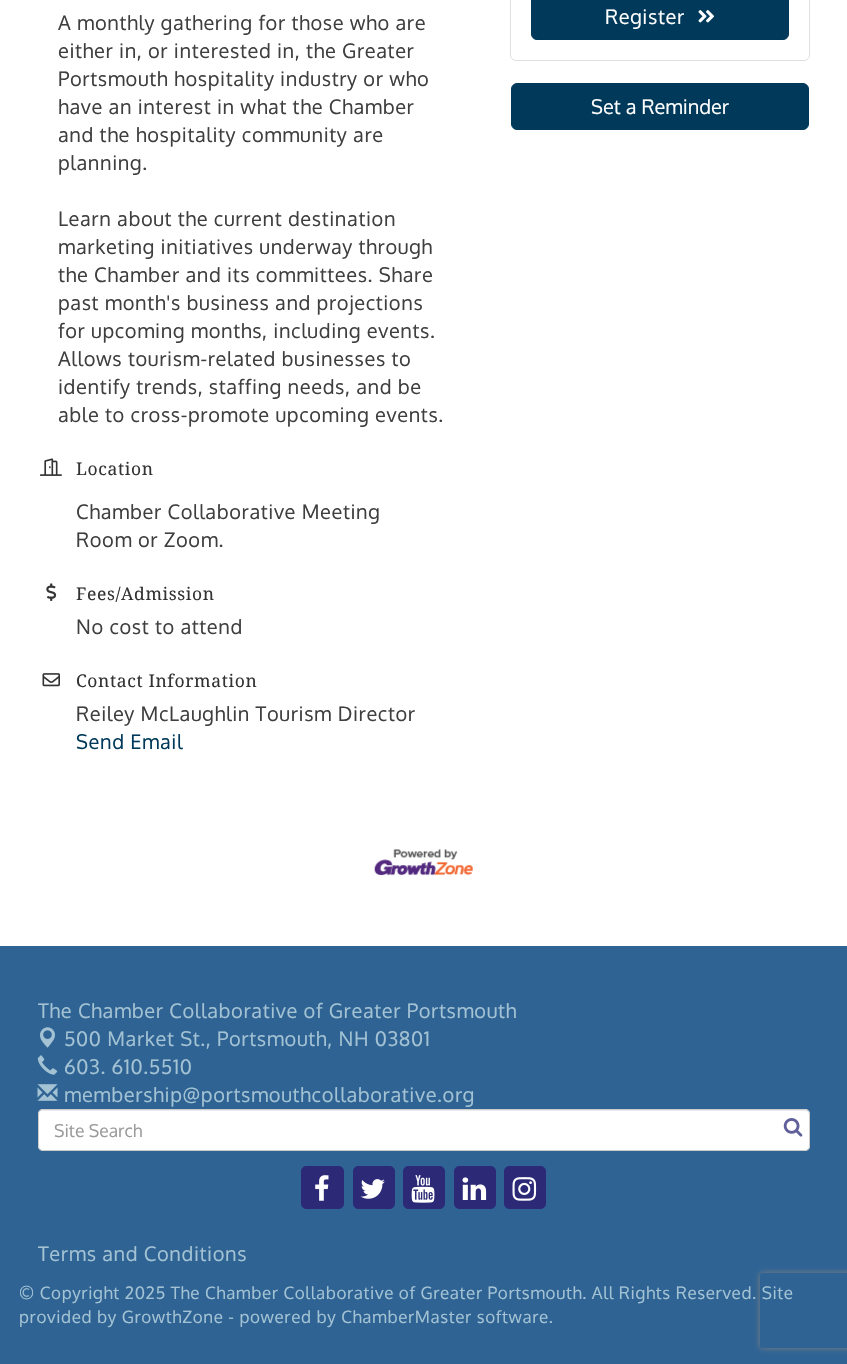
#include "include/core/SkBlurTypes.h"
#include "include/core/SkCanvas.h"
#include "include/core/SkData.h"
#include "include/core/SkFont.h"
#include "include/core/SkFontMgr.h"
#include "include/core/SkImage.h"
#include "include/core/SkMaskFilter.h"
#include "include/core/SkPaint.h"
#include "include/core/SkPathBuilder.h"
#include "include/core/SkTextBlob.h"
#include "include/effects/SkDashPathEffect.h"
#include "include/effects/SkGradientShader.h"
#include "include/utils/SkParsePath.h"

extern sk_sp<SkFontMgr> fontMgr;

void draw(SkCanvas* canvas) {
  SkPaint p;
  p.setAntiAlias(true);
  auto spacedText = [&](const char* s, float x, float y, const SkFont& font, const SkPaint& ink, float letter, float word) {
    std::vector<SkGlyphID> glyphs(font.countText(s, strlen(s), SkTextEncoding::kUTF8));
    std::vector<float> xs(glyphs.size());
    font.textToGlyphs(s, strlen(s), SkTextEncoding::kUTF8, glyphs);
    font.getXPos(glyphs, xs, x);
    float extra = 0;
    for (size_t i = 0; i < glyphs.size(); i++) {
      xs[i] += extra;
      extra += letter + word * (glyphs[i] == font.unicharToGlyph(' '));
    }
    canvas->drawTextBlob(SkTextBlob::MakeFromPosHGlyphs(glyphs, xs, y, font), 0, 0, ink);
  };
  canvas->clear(SK_ColorWHITE);
  canvas->drawImageRect(SkImages::DeferredFromEncodedData(SkData::MakeFromFileName("images/1.png")), SkRect::MakeLTRB(40, 458, 62, 476), SkSamplingOptions());
  canvas->drawImageRect(SkImages::DeferredFromEncodedData(SkData::MakeFromFileName("images/2.png")), SkRect::MakeLTRB(46, 583, 57, 601), SkSamplingOptions());
  canvas->drawImageRect(SkImages::DeferredFromEncodedData(SkData::MakeFromFileName("images/3.png")), SkRect::MakeLTRB(42, 673, 60, 687), SkSamplingOptions());
  p.setStyle(SkPaint::kStroke_Style);
  p.setStrokeWidth(1);
  p.setColor(SkColorSetRGB(223, 223, 223));
  canvas->drawRoundRect(SkRect::MakeLTRB(510.5f, -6.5f, 809.5f, 60.5f), 5.5f, 5.5f, p);
  p.setStyle(SkPaint::kFill_Style);
  p.setColor(SkColorSetRGB(239, 239, 239));
  canvas->drawPath(SkPathBuilder().moveTo(531, -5).lineTo(789, -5).lineTo(789, 35).cubicTo(789, 38, 787, 40, 784, 40).lineTo(536, 40).cubicTo(533, 40, 531, 38, 531, 35).close().detach(), p);
  p.setColor(SkColorSetRGB(0, 57, 90));
  canvas->drawRoundRect(SkRect::MakeLTRB(531.5f, -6.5f, 788.5f, 39.5f), 5.5f, 5.5f, p);
  p.setStyle(SkPaint::kStroke_Style);
  canvas->drawRoundRect(SkRect::MakeLTRB(531.5f, -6.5f, 788.5f, 39.5f), 5.5f, 5.5f, p);
  canvas->drawImageRect(SkImages::DeferredFromEncodedData(SkData::MakeFromFileName("images/4.png")), SkRect::MakeLTRB(698, 10, 714, 23), SkSamplingOptions());
  p.setStyle(SkPaint::kFill_Style);
  canvas->drawRoundRect(SkRect::MakeLTRB(511.5f, 83.5f, 808.5f, 129.5f), 5.5f, 5.5f, p);
  p.setStyle(SkPaint::kStroke_Style);
  canvas->drawRoundRect(SkRect::MakeLTRB(511.5f, 83.5f, 808.5f, 129.5f), 5.5f, 5.5f, p);
  canvas->drawImageRect(SkImages::DeferredFromEncodedData(SkData::MakeFromFileName("images/5.png")), SkRect::MakeLTRB(374, 849, 473, 876), SkSamplingOptions());
  p.setStyle(SkPaint::kFill_Style);
  p.setColor(SkColorSetRGB(46, 99, 148));
  canvas->drawRect(SkRect::MakeLTRB(0, 946, 847, 1364), p);
  canvas->drawImageRect(SkImages::DeferredFromEncodedData(SkData::MakeFromFileName("images/6.png")), SkRect::MakeLTRB(40, 1027, 55, 1048), SkSamplingOptions());
  canvas->drawImageRect(SkImages::DeferredFromEncodedData(SkData::MakeFromFileName("images/7.png")), SkRect::MakeLTRB(37, 1055, 58, 1075), SkSamplingOptions());
  canvas->drawImageRect(SkImages::DeferredFromEncodedData(SkData::MakeFromFileName("images/8.png")), SkRect::MakeLTRB(37, 1084, 58, 1101), SkSamplingOptions());
  p.setColor(SK_ColorWHITE);
  canvas->drawRoundRect(SkRect::MakeLTRB(38, 1109, 810, 1151), 5, 5, p);
  p.setColor(SkColorSetRGB(236, 236, 236));
  canvas->drawPath(SkPathBuilder().moveTo(42, 1111).lineTo(805, 1111).cubicTo(807, 1111, 809, 1113, 809, 1115).lineTo(809, 1114).cubicTo(809, 1112, 807, 1110, 805, 1110).lineTo(43, 1110).cubicTo(41, 1110, 39, 1112, 39, 1114).lineTo(39, 1115).cubicTo(39, 1113, 40, 1111, 42, 1111).close().detach(), p);
  p.setStyle(SkPaint::kStroke_Style);
  p.setColor(SkColorSetRGB(204, 204, 204));
  canvas->drawRoundRect(SkRect::MakeLTRB(38.5f, 1109.5f, 809.5f, 1150.5f), 4.5f, 4.5f, p);
  canvas->drawImageRect(SkImages::DeferredFromEncodedData(SkData::MakeFromFileName("images/9.png")), SkRect::MakeLTRB(783, 1118, 803, 1137), SkSamplingOptions());
  p.setStyle(SkPaint::kFill_Style);
  p.setColor(SkColorSetRGB(44, 42, 119));
  canvas->drawRoundRect(SkRect::MakeLTRB(301.5f, 1166.5f, 343.5f, 1208.5f), 4.5f, 4.5f, p);
  p.setStyle(SkPaint::kStroke_Style);
  canvas->drawRoundRect(SkRect::MakeLTRB(301.5f, 1166.5f, 343.5f, 1208.5f), 4.5f, 4.5f, p);
  canvas->drawImageRect(SkImages::DeferredFromEncodedData(SkData::MakeFromFileName("images/10.png")), SkRect::MakeLTRB(315, 1175, 329, 1201), SkSamplingOptions());
  p.setStyle(SkPaint::kFill_Style);
  canvas->drawRoundRect(SkRect::MakeLTRB(353.5f, 1166.5f, 394.5f, 1208.5f), 4.5f, 4.5f, p);
  p.setStyle(SkPaint::kStroke_Style);
  canvas->drawRoundRect(SkRect::MakeLTRB(353.5f, 1166.5f, 394.5f, 1208.5f), 4.5f, 4.5f, p);
  canvas->drawImageRect(SkImages::DeferredFromEncodedData(SkData::MakeFromFileName("images/11.png")), SkRect::MakeLTRB(360, 1179, 385, 1199), SkSamplingOptions());
  p.setStyle(SkPaint::kFill_Style);
  canvas->drawRoundRect(SkRect::MakeLTRB(403.5f, 1166.5f, 444.5f, 1208.5f), 4.5f, 4.5f, p);
  p.setStyle(SkPaint::kStroke_Style);
  canvas->drawRoundRect(SkRect::MakeLTRB(403.5f, 1166.5f, 444.5f, 1208.5f), 4.5f, 4.5f, p);
  canvas->drawImageRect(SkImages::DeferredFromEncodedData(SkData::MakeFromFileName("images/12.png")), SkRect::MakeLTRB(411, 1175, 435, 1203), SkSamplingOptions());
  p.setStyle(SkPaint::kFill_Style);
  canvas->drawRoundRect(SkRect::MakeLTRB(454.5f, 1166.5f, 495.5f, 1208.5f), 4.5f, 4.5f, p);
  p.setStyle(SkPaint::kStroke_Style);
  canvas->drawRoundRect(SkRect::MakeLTRB(454.5f, 1166.5f, 495.5f, 1208.5f), 4.5f, 4.5f, p);
  canvas->drawImageRect(SkImages::DeferredFromEncodedData(SkData::MakeFromFileName("images/13.png")), SkRect::MakeLTRB(462, 1177, 487, 1200), SkSamplingOptions());
  p.setStyle(SkPaint::kFill_Style);
  canvas->drawRoundRect(SkRect::MakeLTRB(504.5f, 1166.5f, 545.5f, 1208.5f), 4.5f, 4.5f, p);
  p.setStyle(SkPaint::kStroke_Style);
  canvas->drawRoundRect(SkRect::MakeLTRB(504.5f, 1166.5f, 545.5f, 1208.5f), 4.5f, 4.5f, p);
  canvas->drawImageRect(SkImages::DeferredFromEncodedData(SkData::MakeFromFileName("images/14.png")), SkRect::MakeLTRB(512, 1177, 537, 1201), SkSamplingOptions());
  canvas->save();
  canvas->clipPath(SkPathBuilder(SkPathFillType::kEvenOdd).moveTo(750, 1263).lineTo(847, 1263).lineTo(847, 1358).lineTo(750, 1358).close().moveTo(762.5f, 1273).lineTo(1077.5f, 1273).cubicTo(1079, 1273, 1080, 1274, 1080, 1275.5f).lineTo(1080, 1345.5f).cubicTo(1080, 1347, 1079, 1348, 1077.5f, 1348).lineTo(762.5f, 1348).cubicTo(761, 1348, 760, 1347, 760, 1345.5f).lineTo(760, 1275.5f).cubicTo(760, 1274, 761, 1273, 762.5f, 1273).close().detach(), true);
  p.setStyle(SkPaint::kFill_Style);
  p.setColor(SkColorSetRGB(128, 128, 128));
  p.setMaskFilter(SkMaskFilter::MakeBlur(kNormal_SkBlurStyle, 3));
  canvas->drawRoundRect(SkRect::MakeLTRB(760, 1273, 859, 1348), 2.5f, 2.5f, p);
  p.setMaskFilter(nullptr);
  canvas->restore();
  SkFont font1(fontMgr->matchFamilyStyle("Oxygen", SkFontStyle::Normal()), 20);
  font1.setSubpixel(true);
  p.setColor(SkColorSetRGB(63, 63, 63));
  spacedText("A monthly gathering for those who are", 58, 30, font1, p, 0.62f, 0);
  spacedText("either in, or interested in, the Greater", 58, 58, font1, p, 0.62f, 0);
  spacedText("Portsmouth hospitality industry or who", 58, 86, font1, p, 0.62f, 0);
  spacedText("have an interest in what the Chamber", 58, 114, font1, p, 0.62f, 0);
  spacedText("and the hospitality community are", 58, 142, font1, p, 0.62f, 0);
  spacedText("planning.", 58, 170, font1, p, 0.62f, 0);
  spacedText("Learn about the current destination", 58, 226, font1, p, 0.62f, 0);
  spacedText("marketing initiatives underway through", 58, 254, font1, p, 0.62f, 0);
  spacedText("the Chamber and its committees. Share", 58, 282, font1, p, 0.62f, 0);
  spacedText("past month's business and projections", 58, 310, font1, p, 0.62f, 0);
  spacedText("for upcoming months, including events.", 58, 338, font1, p, 0.62f, 0);
  spacedText("Allows tourism-related businesses to", 58, 366, font1, p, 0.62f, 0);
  spacedText("identify trends, staffing needs, and be", 58, 394, font1, p, 0.62f, 0);
  spacedText("able to cross-promote upcoming events.", 58, 422, font1, p, 0.62f, 0);
  SkFont font2(fontMgr->matchFamilyStyle("Noto Serif", SkFontStyle::Normal()), 17.5f);
  font2.setSubpixel(true);
  p.setColor(SkColorSetRGB(51, 51, 51));
  spacedText("Location", 76, 475, font2, p, 0.62f, 0);
  p.setColor(SkColorSetRGB(63, 63, 63));
  spacedText("Chamber Collaborative Meeting", 76, 519, font1, p, 0.62f, 0);
  spacedText("Room or Zoom.", 76, 547, font1, p, 0.62f, 0);
  p.setColor(SkColorSetRGB(51, 51, 51));
  spacedText("Fees/Admission", 76, 600, font2, p, 0.62f, 0);
  p.setColor(SkColorSetRGB(63, 63, 63));
  spacedText("No cost to attend", 76, 634, font1, p, 0.62f, 0);
  p.setColor(SkColorSetRGB(51, 51, 51));
  spacedText("Contact Information", 76, 687, font2, p, 0.62f, 0);
  p.setColor(SkColorSetRGB(63, 63, 63));
  spacedText("Reiley McLaughlin Tourism Director", 76, 721, font1, p, 0.62f, 0);
  p.setColor(SkColorSetRGB(0, 57, 90));
  spacedText("Send Email", 76, 749, font1, p, 0.62f, 0);
  p.setColor(SK_ColorWHITE);
  spacedText("Register", 605, 24, font1, p, 0.62f, 0);
  canvas->drawString("Set a Reminder", 591, 114, font1, p);
  p.setColor(SkColorSetRGB(163, 194, 211));
  spacedText("The Chamber Collaborative of Greater Portsmouth", 38, 1018, font1, p, 0.62f, 0);
  spacedText("500 Market St., Portsmouth, NH 03801", 64, 1046, font1, p, 0.62f, 0);
  spacedText("603. 610.5510", 64, 1074, font1, p, 0.62f, 0);
  spacedText("membership@portsmouthcollaborative.org", 64, 1102, font1, p, 0.62f, 0);
  SkFont font3(fontMgr->matchFamilyStyle("Oxygen", SkFontStyle::Normal()), 17.5f);
  font3.setSubpixel(true);
  p.setColor(SkColorSetRGB(153, 153, 153));
  canvas->drawString("Site Search", 54, 1137, font3, p);
  p.setColor(SkColorSetRGB(163, 194, 211));
  spacedText("Terms and Conditions", 38, 1261, font1, p, 0.62f, 0);
  SkFont font4(fontMgr->matchFamilyStyle("Oxygen", SkFontStyle::Normal()), 17);
  font4.setSubpixel(true);
  spacedText("© Copyright 2025 The Chamber Collaborative of Greater Portsmouth. All Rights Reserved. Site", 19, 1299, font4, p, 0.62f, 0);
  spacedText("provided by GrowthZone - powered by ChamberMaster software.", 19, 1323, font4, p, 0.62f, 0);
}
